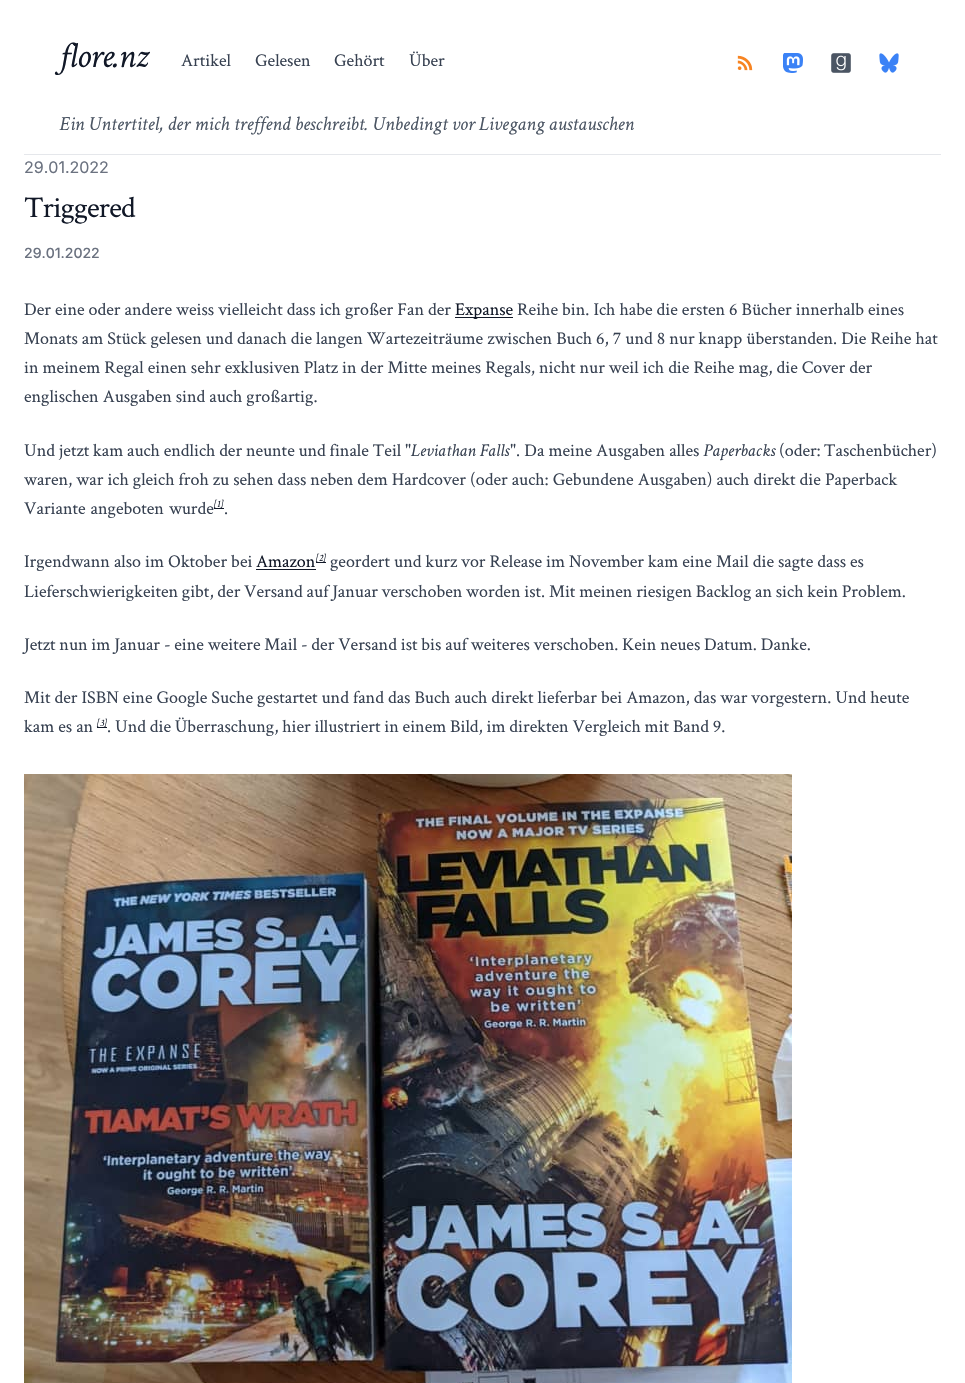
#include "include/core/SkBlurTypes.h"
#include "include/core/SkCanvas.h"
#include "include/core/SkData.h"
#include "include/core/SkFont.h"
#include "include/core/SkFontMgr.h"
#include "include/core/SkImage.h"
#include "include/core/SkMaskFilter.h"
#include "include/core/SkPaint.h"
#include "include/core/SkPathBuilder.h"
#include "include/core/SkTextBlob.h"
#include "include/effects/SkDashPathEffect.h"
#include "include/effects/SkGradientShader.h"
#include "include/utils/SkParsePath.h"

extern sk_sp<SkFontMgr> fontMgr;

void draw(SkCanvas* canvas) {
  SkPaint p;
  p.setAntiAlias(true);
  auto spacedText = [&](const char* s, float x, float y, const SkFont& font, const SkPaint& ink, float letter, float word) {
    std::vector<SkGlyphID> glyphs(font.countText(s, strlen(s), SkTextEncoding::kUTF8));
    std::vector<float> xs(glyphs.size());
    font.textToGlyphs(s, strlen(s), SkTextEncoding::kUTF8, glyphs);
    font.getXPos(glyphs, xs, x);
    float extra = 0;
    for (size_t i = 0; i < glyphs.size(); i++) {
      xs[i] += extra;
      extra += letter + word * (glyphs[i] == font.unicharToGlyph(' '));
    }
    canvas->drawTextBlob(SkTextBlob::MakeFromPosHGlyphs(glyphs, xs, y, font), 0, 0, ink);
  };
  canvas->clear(SK_ColorWHITE);
  p.setColor(SkColorSetRGB(229, 231, 235));
  canvas->drawRect(SkRect::MakeLTRB(24, 154, 941, 155), p);
  canvas->drawImageRect(SkImages::DeferredFromEncodedData(SkData::MakeFromFileName("images/1.png")), SkRect::MakeLTRB(737, 55, 753, 71), SkSamplingOptions());
  canvas->drawImageRect(SkImages::DeferredFromEncodedData(SkData::MakeFromFileName("images/2.png")), SkRect::MakeLTRB(783, 53, 803, 73), SkSamplingOptions());
  canvas->drawImageRect(SkImages::DeferredFromEncodedData(SkData::MakeFromFileName("images/3.png")), SkRect::MakeLTRB(831, 53, 851, 73), SkSamplingOptions());
  canvas->drawImageRect(SkImages::DeferredFromEncodedData(SkData::MakeFromFileName("images/4.png")), SkRect::MakeLTRB(879, 53, 899, 73), SkSamplingOptions());
  p.setColor(SkColorSetRGB(17, 24, 39));
  canvas->drawRect(SkRect::MakeLTRB(455, 317, 513, 318), p);
  canvas->drawRect(SkRect::MakeLTRB(214, 508, 224, 509), p);
  canvas->drawRect(SkRect::MakeLTRB(256, 569, 316, 570), p);
  canvas->drawRect(SkRect::MakeLTRB(316, 562, 326, 563), p);
  canvas->drawRect(SkRect::MakeLTRB(97, 727, 107, 728), p);
  canvas->drawImageRect(SkImages::DeferredFromEncodedData(SkData::MakeFromFileName("images/5.png")), SkRect::MakeLTRB(24, 774, 792, 1383), SkSamplingOptions());
  SkFont font1(fontMgr->matchFamilyStyle("Crimson Text", SkFontStyle::Italic()), 36);
  font1.setSubpixel(true);
  spacedText("flore.nz", 59, 67, font1, p, -1, 0);
  SkFont font2(fontMgr->matchFamilyStyle("Crimson Text", SkFontStyle::Normal()), 18);
  font2.setSubpixel(true);
  p.setColor(SkColorSetRGB(55, 65, 81));
  canvas->drawString("Artikel", 181, 66, font2, p);
  canvas->drawString("Gelesen", 255, 66, font2, p);
  canvas->drawString("Gehört", 334, 66, font2, p);
  canvas->drawString("Über", 409, 66, font2, p);
  SkFont font3(fontMgr->matchFamilyStyle("Crimson Text", SkFontStyle::Italic()), 20);
  font3.setSubpixel(true);
  p.setColor(SkColorSetRGB(75, 85, 99));
  spacedText("Ein Untertitel, der mich treffend beschreibt. Unbedingt vor Livegang austauschen", 59, 130, font3, p, 0, -0.25f);
  SkFont font4(fontMgr->matchFamilyStyle("Inter", SkFontStyle::Normal()), 16);
  font4.setSubpixel(true);
  p.setColor(SkColorSetRGB(107, 114, 128));
  canvas->drawString("29.01.2022", 24, 173, font4, p);
  SkFont font5(fontMgr->matchFamilyStyle("Crimson Text", SkFontStyle::Normal()), 30);
  font5.setSubpixel(true);
  p.setColor(SkColorSetRGB(17, 24, 39));
  spacedText("Triggered", 24, 217, font5, p, -0.75f, 0);
  SkFont font6(fontMgr->matchFamilyStyle("Inter", SkFontStyle(500, SkFontStyle::kNormal_Width, SkFontStyle::kUpright_Slant)), 14);
  font6.setSubpixel(true);
  p.setColor(SkColorSetRGB(107, 114, 128));
  canvas->drawString("29.01.2022", 24, 258, font6, p);
  p.setColor(SkColorSetRGB(55, 65, 81));
  canvas->drawString("Der eine oder andere weiss vielleicht dass ich großer Fan der", 24, 315, font2, p);
  p.setColor(SkColorSetRGB(17, 24, 39));
  canvas->drawString("Expanse", 455, 315, font2, p);
  p.setColor(SkColorSetRGB(55, 65, 81));
  canvas->drawString("Reihe bin. Ich habe die ersten 6 Bücher innerhalb eines", 517, 315, font2, p);
  canvas->drawString("Monats am Stück gelesen und danach die langen Wartezeiträume zwischen Buch 6, 7 und 8 nur knapp überstanden. Die Reihe hat", 24, 344, font2, p);
  canvas->drawString("in meinem Regal einen sehr exklusiven Platz in der Mitte meines Regals, nicht nur weil ich die Reihe mag, die Cover der", 24, 373, font2, p);
  canvas->drawString("englischen Ausgaben sind auch großartig.", 24, 402, font2, p);
  spacedText("Und jetzt kam auch endlich der neunte und finale Teil \"", 24, 456, font2, p, 0, -0.25f);
  SkFont font7(fontMgr->matchFamilyStyle("Crimson Text", SkFontStyle::Italic()), 18);
  font7.setSubpixel(true);
  canvas->drawString("Leviathan Falls", 411, 456, font7, p);
  canvas->drawString("\". Da meine Ausgaben alles", 510, 456, font2, p);
  canvas->drawString("Paperbacks", 703, 456, font7, p);
  spacedText("(oder: Taschenbücher)", 779, 456, font2, p, 0, -1);
  canvas->drawString("waren, war ich gleich froh zu sehen dass neben dem Hardcover (oder auch: Gebundene Ausgaben) auch direkt die Paperback", 24, 485, font2, p);
  spacedText("Variante angeboten wurde", 24, 514, font2, p, 0, 1);
  SkFont font8(fontMgr->matchFamilyStyle("Crimson Text", SkFontStyle::Italic()), 10);
  font8.setSubpixel(true);
  p.setColor(SkColorSetRGB(17, 24, 39));
  canvas->drawString("[1]", 214, 507, font8, p);
  p.setColor(SkColorSetRGB(55, 65, 81));
  canvas->drawString(".", 224, 514, font2, p);
  canvas->drawString("Irgendwann also im Oktober bei", 24, 567, font2, p);
  p.setColor(SkColorSetRGB(17, 24, 39));
  canvas->drawString("Amazon", 256, 567, font2, p);
  canvas->drawString("[2]", 316, 561, font8, p);
  p.setColor(SkColorSetRGB(55, 65, 81));
  canvas->drawString("geordert und kurz vor Release im November kam eine Mail die sagte dass es", 330, 567, font2, p);
  spacedText("Lieferschwierigkeiten gibt, der Versand auf Januar verschoben worden ist. Mit meinen riesigen Backlog an sich kein Problem.", 24, 597, font2, p, 0, -0.25f);
  spacedText("Jetzt nun im Januar - eine weitere Mail - der Versand ist bis auf weiteres verschoben. Kein neues Datum. Danke.", 24, 650, font2, p, 0, -0.2f);
  canvas->drawString("Mit der ISBN eine Google Suche gestartet und fand das Buch auch direkt lieferbar bei Amazon, das war vorgestern. Und heute", 24, 703, font2, p);
  canvas->drawString("kam es an", 24, 732, font2, p);
  p.setColor(SkColorSetRGB(17, 24, 39));
  canvas->drawString("[3]", 97, 726, font8, p);
  p.setColor(SkColorSetRGB(55, 65, 81));
  canvas->drawString(".", 107, 732, font2, p);
  spacedText("Und die Überraschung, hier illustriert in einem Bild, im direkten Vergleich mit Band 9.", 115, 732, font2, p, 0, -0.25f);
}
